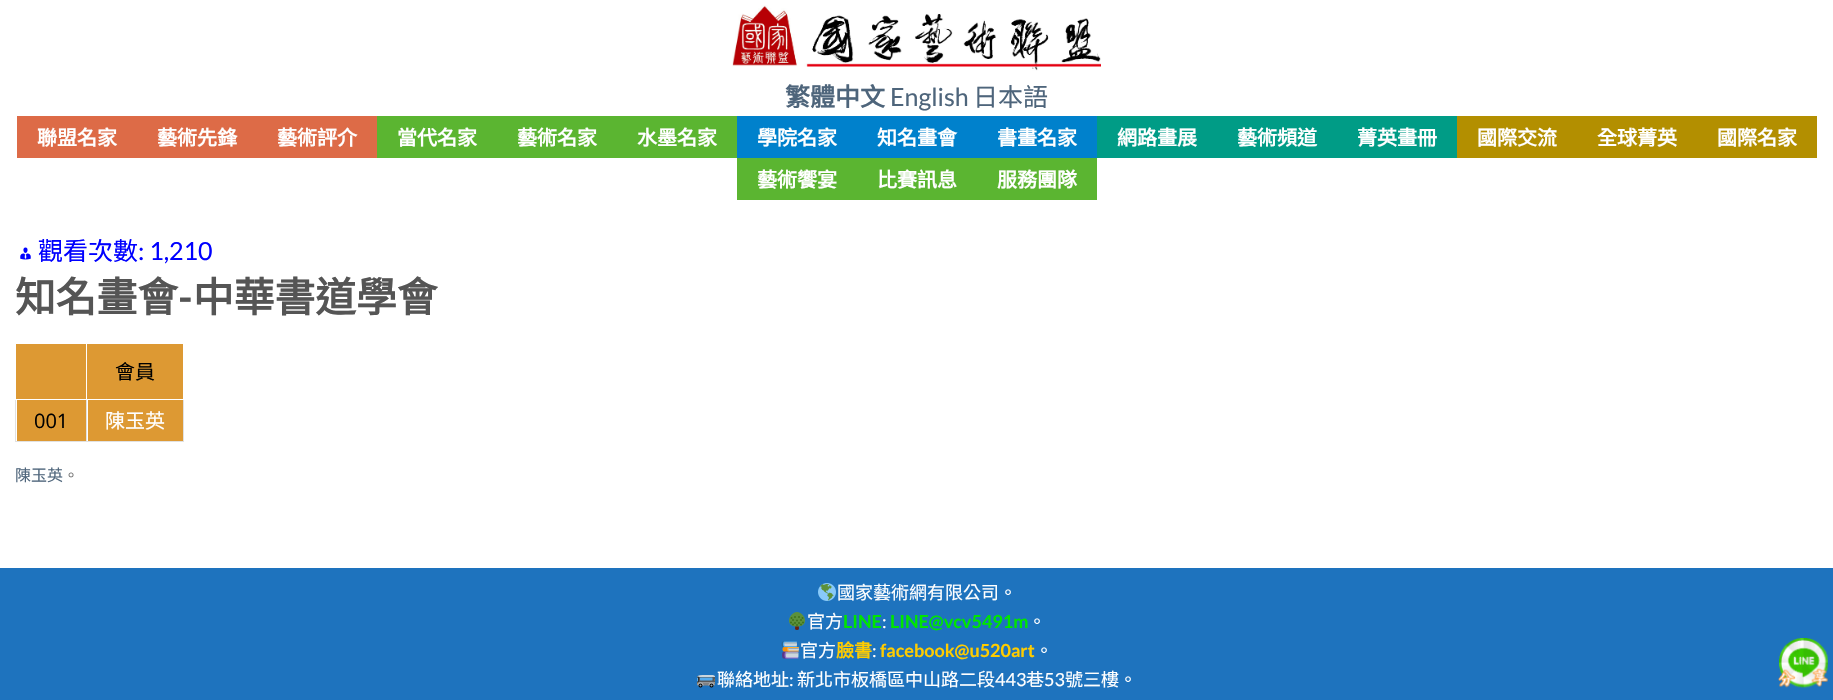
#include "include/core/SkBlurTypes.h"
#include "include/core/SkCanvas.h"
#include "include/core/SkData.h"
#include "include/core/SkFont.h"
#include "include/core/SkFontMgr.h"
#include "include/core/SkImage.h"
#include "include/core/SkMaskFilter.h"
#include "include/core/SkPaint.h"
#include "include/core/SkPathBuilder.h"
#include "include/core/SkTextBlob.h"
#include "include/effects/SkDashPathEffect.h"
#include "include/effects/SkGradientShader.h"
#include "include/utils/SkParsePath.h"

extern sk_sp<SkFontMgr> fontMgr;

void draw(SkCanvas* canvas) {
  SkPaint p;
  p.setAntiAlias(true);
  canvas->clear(SK_ColorWHITE);
  canvas->drawImageRect(SkImages::DeferredFromEncodedData(SkData::MakeFromFileName("images/1.png")), SkRect::MakeLTRB(732, 5, 1101, 71), SkSamplingOptions());
  p.setColor(SkColorSetRGB(221, 107, 71));
  canvas->drawRect(SkRect::MakeLTRB(17, 116, 377, 158), p);
  p.setColor(SkColorSetRGB(91, 181, 49));
  canvas->drawRect(SkRect::MakeLTRB(377, 116, 737, 158), p);
  p.setColor(SkColorSetRGB(0, 129, 204));
  canvas->drawRect(SkRect::MakeLTRB(737, 116, 1097, 158), p);
  p.setColor(SkColorSetRGB(0, 156, 134));
  canvas->drawRect(SkRect::MakeLTRB(1097, 116, 1457, 158), p);
  p.setColor(SkColorSetRGB(179, 143, 0));
  canvas->drawRect(SkRect::MakeLTRB(1457, 116, 1817, 158), p);
  p.setColor(SkColorSetRGB(91, 181, 49));
  canvas->drawRect(SkRect::MakeLTRB(737, 158, 1097, 200), p);
  canvas->drawImageRect(SkImages::DeferredFromEncodedData(SkData::MakeFromFileName("images/2.png")), SkRect::MakeLTRB(20, 247, 31, 260), SkSamplingOptions());
  p.setColor(SkColorSetRGB(221, 153, 51));
  canvas->drawRect(SkRect::MakeLTRB(16, 344, 86, 399), p);
  p.setColor(SkColorSetRGB(225, 225, 225));
  canvas->drawRect(SkRect::MakeLTRB(183, 399, 184, 442), p);
  canvas->drawRect(SkRect::MakeLTRB(86, 441, 184, 442), p);
  canvas->drawRect(SkRect::MakeLTRB(86, 399, 87, 442), p);
  canvas->drawRect(SkRect::MakeLTRB(15, 441, 87, 442), p);
  canvas->drawRect(SkRect::MakeLTRB(15, 399, 16, 442), p);
  p.setColor(SK_ColorWHITE);
  canvas->drawRect(SkRect::MakeLTRB(15, 399, 16, 400), p);
  p.setColor(SkColorSetRGB(221, 153, 51));
  canvas->drawRect(SkRect::MakeLTRB(87, 344, 183, 399), p);
  p.setColor(SK_ColorWHITE);
  canvas->drawRect(SkRect::MakeLTRB(183, 399, 184, 400), p);
  canvas->drawRect(SkRect::MakeLTRB(86, 399, 87, 400), p);
  p.setColor(SkColorSetRGB(221, 153, 51));
  canvas->drawRect(SkRect::MakeLTRB(17, 400, 86, 441), p);
  canvas->drawRect(SkRect::MakeLTRB(88, 400, 183, 441), p);
  p.setColor(SkColorSetRGB(30, 115, 190));
  canvas->drawRect(SkRect::MakeLTRB(0, 568, 1833, 700), p);
  canvas->drawImageRect(SkImages::DeferredFromEncodedData(SkData::MakeFromFileName("images/3.png")), SkRect::MakeLTRB(818, 583, 836, 601), SkSamplingOptions());
  canvas->drawImageRect(SkImages::DeferredFromEncodedData(SkData::MakeFromFileName("images/4.png")), SkRect::MakeLTRB(789, 612, 805, 630), SkSamplingOptions());
  canvas->drawImageRect(SkImages::DeferredFromEncodedData(SkData::MakeFromFileName("images/5.png")), SkRect::MakeLTRB(781, 641, 799, 659), SkSamplingOptions());
  canvas->drawImageRect(SkImages::DeferredFromEncodedData(SkData::MakeFromFileName("images/6.png")), SkRect::MakeLTRB(697, 675, 715, 688), SkSamplingOptions());
  canvas->drawImageRect(SkImages::DeferredFromEncodedData(SkData::MakeFromFileName("images/7.png")), SkRect::MakeLTRB(1778, 638, 1828, 688), SkSamplingOptions());
  SkFont font1(fontMgr->matchFamilyStyle("Noto Sans CJK TC", SkFontStyle::Bold()), 25);
  font1.setSubpixel(true);
  p.setColor(SkColorSetRGB(78, 101, 123));
  canvas->drawString("繁體中文", 785, 106, font1, p);
  SkFont font2(fontMgr->matchFamilyStyle("Lato", SkFontStyle::Normal()), 25);
  font2.setSubpixel(true);
  canvas->drawString("English", 890, 106, font2, p);
  SkFont font3(fontMgr->matchFamilyStyle("Noto Sans CJK TC", SkFontStyle::Normal()), 25);
  font3.setSubpixel(true);
  canvas->drawString("日本語", 973, 106, font3, p);
  SkFont font4(fontMgr->matchFamilyStyle("Noto Sans CJK TC", SkFontStyle::Bold()), 20);
  font4.setSubpixel(true);
  p.setColor(SK_ColorWHITE);
  canvas->drawString("聯盟名家", 37, 145, font4, p);
  canvas->drawString("藝術先鋒", 157, 145, font4, p);
  canvas->drawString("藝術評介", 277, 145, font4, p);
  canvas->drawString("當代名家", 397, 145, font4, p);
  canvas->drawString("藝術名家", 517, 145, font4, p);
  canvas->drawString("水墨名家", 637, 145, font4, p);
  canvas->drawString("學院名家", 757, 145, font4, p);
  canvas->drawString("知名畫會", 877, 145, font4, p);
  canvas->drawString("書畫名家", 997, 145, font4, p);
  canvas->drawString("網路畫展", 1117, 145, font4, p);
  canvas->drawString("藝術頻道", 1237, 145, font4, p);
  canvas->drawString("菁英畫冊", 1357, 145, font4, p);
  canvas->drawString("國際交流", 1477, 145, font4, p);
  canvas->drawString("全球菁英", 1597, 145, font4, p);
  canvas->drawString("國際名家", 1717, 145, font4, p);
  canvas->drawString("藝術饗宴", 757, 187, font4, p);
  canvas->drawString("比賽訊息", 877, 187, font4, p);
  canvas->drawString("服務團隊", 997, 187, font4, p);
  p.setColor(SkColorSetRGB(0, 0, 255));
  canvas->drawString("觀看次數", 38, 260, font3, p);
  canvas->drawString(": 1,210", 138, 260, font2, p);
  SkFont font5(fontMgr->matchFamilyStyle("Noto Sans CJK TC", SkFontStyle::Bold()), 40.75f);
  font5.setSubpixel(true);
  p.setColor(SkColorSetRGB(85, 85, 85));
  canvas->drawString("知名畫會", 15, 312, font5, p);
  SkFont font6(fontMgr->matchFamilyStyle("Lato", SkFontStyle::Bold()), 40.75f);
  font6.setSubpixel(true);
  canvas->drawString("-", 178, 312, font6, p);
  canvas->drawString("中華書道學會", 193, 312, font5, p);
  SkFont font7(fontMgr->matchFamilyStyle("Noto Sans CJK TC", SkFontStyle::Normal()), 20);
  font7.setSubpixel(true);
  p.setColor(SK_ColorBLACK);
  canvas->drawString("會員", 115, 379, font7, p);
  SkFont font8(fontMgr->matchFamilyStyle("Open Sans", SkFontStyle::Normal()), 20);
  font8.setSubpixel(true);
  canvas->drawString("001", 34, 428, font8, p);
  p.setColor(SK_ColorWHITE);
  canvas->drawString("陳玉英", 105, 428, font7, p);
  SkFont font9(fontMgr->matchFamilyStyle("Noto Sans CJK TC", SkFontStyle::Normal()), 16);
  font9.setSubpixel(true);
  p.setColor(SkColorSetRGB(78, 101, 123));
  canvas->drawString("陳玉英", 15, 481, font9, p);
  p.setColor(SkColorSetRGB(119, 119, 119));
  canvas->drawString("。", 63, 481, font9, p);
  SkFont font10(fontMgr->matchFamilyStyle("Noto Sans CJK TC", SkFontStyle::Normal()), 18);
  font10.setSubpixel(true);
  p.setColor(SK_ColorWHITE);
  canvas->drawString("國家藝術網有限公司。", 837, 599, font10, p);
  canvas->drawString("官方", 807, 628, font10, p);
  SkFont font11(fontMgr->matchFamilyStyle("Lato", SkFontStyle::Bold()), 18);
  font11.setSubpixel(true);
  p.setColor(SkColorSetRGB(0, 230, 0));
  canvas->drawString("LINE", 843, 628, font11, p);
  SkFont font12(fontMgr->matchFamilyStyle("Lato", SkFontStyle::Normal()), 18);
  font12.setSubpixel(true);
  p.setColor(SK_ColorWHITE);
  canvas->drawString(":", 882, 628, font12, p);
  p.setColor(SkColorSetRGB(0, 230, 0));
  canvas->drawString("LINE@vcv5491m", 890, 628, font11, p);
  p.setColor(SK_ColorWHITE);
  canvas->drawString("。", 1028, 628, font10, p);
  canvas->drawString("官方", 800, 657, font10, p);
  SkFont font13(fontMgr->matchFamilyStyle("Noto Sans CJK TC", SkFontStyle::Bold()), 18);
  font13.setSubpixel(true);
  p.setColor(SkColorSetRGB(255, 204, 0));
  canvas->drawString("臉書", 836, 657, font13, p);
  p.setColor(SK_ColorWHITE);
  canvas->drawString(":", 872, 657, font12, p);
  p.setColor(SkColorSetRGB(255, 204, 0));
  canvas->drawString("facebook@u520art", 880, 657, font11, p);
  p.setColor(SK_ColorWHITE);
  canvas->drawString("。", 1035, 657, font10, p);
  canvas->drawString("聯絡地址", 717, 686, font10, p);
  canvas->drawString(":", 789, 686, font12, p);
  canvas->drawString("新北市板橋區中山路二段", 797, 686, font10, p);
  canvas->drawString("443", 995, 686, font12, p);
  canvas->drawString("巷", 1026, 686, font10, p);
  canvas->drawString("53", 1044, 686, font12, p);
  canvas->drawString("號三樓。", 1065, 686, font10, p);
}
